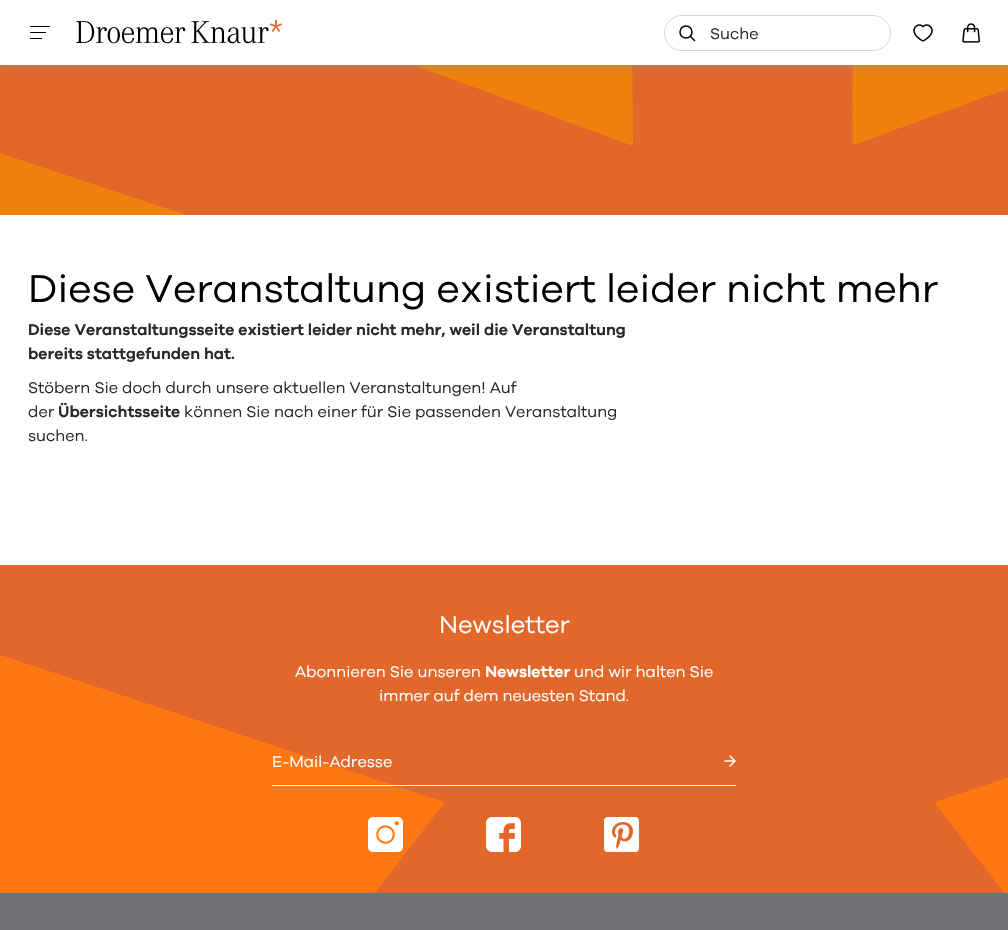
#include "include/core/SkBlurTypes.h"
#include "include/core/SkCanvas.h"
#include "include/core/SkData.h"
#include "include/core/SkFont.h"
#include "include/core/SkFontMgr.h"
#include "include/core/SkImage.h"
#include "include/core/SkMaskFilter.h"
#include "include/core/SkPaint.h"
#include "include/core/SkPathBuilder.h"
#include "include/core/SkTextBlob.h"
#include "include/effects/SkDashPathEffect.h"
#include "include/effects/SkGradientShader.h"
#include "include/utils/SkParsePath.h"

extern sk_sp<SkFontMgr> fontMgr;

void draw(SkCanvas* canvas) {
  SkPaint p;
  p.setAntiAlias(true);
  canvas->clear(SK_ColorWHITE);
  canvas->drawImageRect(SkImages::DeferredFromEncodedData(SkData::MakeFromFileName("images/4.png")), SkRect::MakeLTRB(0, 65, 1008, 215), SkSamplingOptions());
  canvas->save();
  canvas->clipRect(SkRect::MakeLTRB(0, 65, 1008, 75));
  p.setColor(SkColorSetARGB(128, 143, 143, 143));
  p.setMaskFilter(SkMaskFilter::MakeBlur(kNormal_SkBlurStyle, 4.5f));
  canvas->drawRect(SkRect::MakeLTRB(0, 2, 1008, 67), p);
  p.setMaskFilter(nullptr);
  canvas->restore();
  p.setColor(SK_ColorBLACK);
  canvas->drawRoundRect(SkRect::MakeLTRB(30, 26, 50, 27), 0.5f, 0.5f, p);
  canvas->drawRoundRect(SkRect::MakeLTRB(30, 32, 46, 33), 0.5f, 0.5f, p);
  canvas->drawRoundRect(SkRect::MakeLTRB(30, 38, 42, 39), 0.5f, 0.5f, p);
  canvas->drawImageRect(SkImages::DeferredFromEncodedData(SkData::MakeFromFileName("images/1.png")), SkRect::MakeLTRB(76, 20, 282, 44), SkSamplingOptions());
  p.setStyle(SkPaint::kStroke_Style);
  p.setStrokeWidth(1);
  p.setColor(SkColorSetRGB(216, 216, 216));
  canvas->drawRoundRect(SkRect::MakeLTRB(664.5f, 15.5f, 890.5f, 50.5f), 17.5f, 17.5f, p);
  p.setStrokeWidth(1.5f);
  p.setStrokeCap(SkPaint::kRound_Cap);
  p.setStrokeJoin(SkPaint::kRound_Join);
  p.setColor(SK_ColorBLACK);
  canvas->drawPath(SkPathBuilder().moveTo(690.5f, 36.5f).lineTo(694.5f, 40.5f).detach(), p);
  p.setStrokeCap(SkPaint::kButt_Cap);
  p.setStrokeJoin(SkPaint::kMiter_Join);
  canvas->drawCircle(686, 32, 6, p);
  canvas->drawImageRect(SkImages::DeferredFromEncodedData(SkData::MakeFromFileName("images/2.png")), SkRect::MakeLTRB(913, 24, 933, 42), SkSamplingOptions());
  canvas->drawImageRect(SkImages::DeferredFromEncodedData(SkData::MakeFromFileName("images/3.png")), SkRect::MakeLTRB(962, 23, 980, 43), SkSamplingOptions());
  canvas->drawImageRect(SkImages::DeferredFromEncodedData(SkData::MakeFromFileName("images/5.png")), SkRect::MakeLTRB(0, 565, 1008, 893), SkSamplingOptions());
  p.setStyle(SkPaint::kFill_Style);
  p.setColor(SK_ColorWHITE);
  canvas->drawRect(SkRect::MakeLTRB(272, 785, 736, 786), p);
  p.setStyle(SkPaint::kStroke_Style);
  p.setStrokeCap(SkPaint::kRound_Cap);
  p.setStrokeJoin(SkPaint::kRound_Join);
  canvas->drawPath(SkPathBuilder().moveTo(730, 756).lineTo(735, 761).lineTo(730, 766).moveTo(735, 761).lineTo(725, 761).detach(), p);
  canvas->drawImageRect(SkImages::DeferredFromEncodedData(SkData::MakeFromFileName("images/6.png")), SkRect::MakeLTRB(368, 817, 403, 852), SkSamplingOptions());
  canvas->drawImageRect(SkImages::DeferredFromEncodedData(SkData::MakeFromFileName("images/7.png")), SkRect::MakeLTRB(486, 817, 521, 852), SkSamplingOptions());
  canvas->drawImageRect(SkImages::DeferredFromEncodedData(SkData::MakeFromFileName("images/8.png")), SkRect::MakeLTRB(604, 817, 639, 852), SkSamplingOptions());
  p.setStyle(SkPaint::kFill_Style);
  p.setColor(SkColorSetRGB(112, 113, 117));
  canvas->drawRect(SkRect::MakeLTRB(0, 893, 1008, 930), p);
  SkFont font1(fontMgr->matchFamilyStyle("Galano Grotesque", SkFontStyle::Normal()), 16);
  font1.setSubpixel(true);
  p.setColor(SkColorSetRGB(41, 41, 41));
  canvas->drawString("Suche", 710, 39, font1, p);
  SkFont font2(fontMgr->matchFamilyStyle("Galano Grotesque", SkFontStyle::Normal()), 40);
  font2.setSubpixel(true);
  p.setColor(SK_ColorBLACK);
  canvas->drawString("Diese Veranstaltung existiert leider nicht mehr", 28, 302, font2, p);
  SkFont font3(fontMgr->matchFamilyStyle("Galano Grotesque", SkFontStyle(600, SkFontStyle::kNormal_Width, SkFontStyle::kUpright_Slant)), 16);
  font3.setSubpixel(true);
  p.setColor(SkColorSetRGB(41, 41, 41));
  canvas->drawString("Diese Veranstaltungsseite existiert leider nicht mehr, weil die Veranstaltung", 28, 335, font3, p);
  canvas->drawString("bereits stattgefunden hat.", 28, 359, font3, p);
  canvas->drawString("Stöbern Sie doch durch unsere aktuellen Veranstaltungen! Auf", 28, 393, font1, p);
  canvas->drawString("der", 28, 417, font1, p);
  canvas->drawString("Übersichtsseite", 58, 417, font3, p);
  canvas->drawString("können Sie nach einer für Sie passenden Veranstaltung", 184, 417, font1, p);
  canvas->drawString("suchen.", 28, 441, font1, p);
  SkFont font4(fontMgr->matchFamilyStyle("Galano Grotesque", SkFontStyle::Normal()), 25);
  font4.setSubpixel(true);
  p.setColor(SK_ColorWHITE);
  canvas->drawString("Newsletter", 439, 633, font4, p);
  canvas->drawString("Abonnieren Sie unseren", 295, 677, font1, p);
  canvas->drawString("Newsletter", 485, 677, font3, p);
  canvas->drawString("und wir halten Sie", 574, 677, font1, p);
  canvas->drawString("immer auf dem neuesten Stand.", 379, 701, font1, p);
  canvas->drawString("E-Mail-Adresse", 272, 767, font1, p);
}
